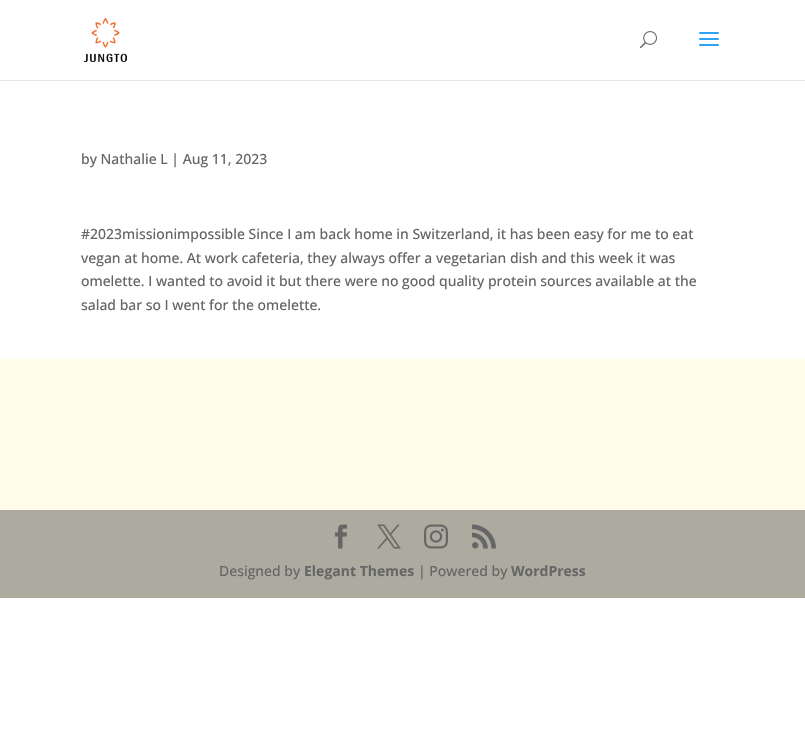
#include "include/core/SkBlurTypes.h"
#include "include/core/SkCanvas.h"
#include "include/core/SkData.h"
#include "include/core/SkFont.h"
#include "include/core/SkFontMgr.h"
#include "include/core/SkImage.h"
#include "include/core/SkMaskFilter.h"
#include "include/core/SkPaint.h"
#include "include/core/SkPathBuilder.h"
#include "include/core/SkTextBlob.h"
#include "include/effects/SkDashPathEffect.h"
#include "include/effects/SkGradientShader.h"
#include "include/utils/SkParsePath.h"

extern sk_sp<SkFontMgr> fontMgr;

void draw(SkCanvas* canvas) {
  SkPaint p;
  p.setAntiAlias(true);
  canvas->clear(SK_ColorWHITE);
  p.setColor(SkColorSetRGB(230, 230, 230));
  canvas->drawRect(SkRect::MakeLTRB(0, 80, 805, 81), p);
  canvas->drawImageRect(SkImages::DeferredFromEncodedData(SkData::MakeFromFileName("images/1.png")), SkRect::MakeLTRB(84, 18, 127, 62), SkSamplingOptions());
  canvas->drawImageRect(SkImages::DeferredFromEncodedData(SkData::MakeFromFileName("images/2.png")), SkRect::MakeLTRB(640, 31, 657, 49), SkSamplingOptions());
  canvas->drawImageRect(SkImages::DeferredFromEncodedData(SkData::MakeFromFileName("images/3.png")), SkRect::MakeLTRB(699, 32, 719, 46), SkSamplingOptions());
  p.setColor(SkColorSetRGB(255, 252, 234));
  canvas->drawRect(SkRect::MakeLTRB(0, 359, 805, 510), p);
  p.setColor(SkColorSetRGB(173, 171, 159));
  canvas->drawRect(SkRect::MakeLTRB(0, 510, 805, 598), p);
  canvas->drawImageRect(SkImages::DeferredFromEncodedData(SkData::MakeFromFileName("images/4.png")), SkRect::MakeLTRB(335, 524, 347, 549), SkSamplingOptions());
  canvas->drawImageRect(SkImages::DeferredFromEncodedData(SkData::MakeFromFileName("images/5.png")), SkRect::MakeLTRB(377, 524, 401, 549), SkSamplingOptions());
  canvas->drawImageRect(SkImages::DeferredFromEncodedData(SkData::MakeFromFileName("images/6.png")), SkRect::MakeLTRB(424, 524, 448, 549), SkSamplingOptions());
  canvas->drawImageRect(SkImages::DeferredFromEncodedData(SkData::MakeFromFileName("images/7.png")), SkRect::MakeLTRB(472, 524, 496, 549), SkSamplingOptions());
  SkFont font1(fontMgr->matchFamilyStyle("Open Sans", SkFontStyle(500, SkFontStyle::kNormal_Width, SkFontStyle::kUpright_Slant)), 14);
  font1.setSubpixel(true);
  p.setColor(SkColorSetRGB(102, 102, 102));
  canvas->drawString("by Nathalie L | Aug 11, 2023", 81, 164, font1, p);
  canvas->drawString("#2023missionimpossible Since I am back home in Switzerland, it has been easy for me to eat", 81, 239, font1, p);
  canvas->drawString("vegan at home. At work cafeteria, they always offer a vegetarian dish and this week it was", 81, 263, font1, p);
  canvas->drawString("omelette. I wanted to avoid it but there were no good quality protein sources available at the", 81, 286, font1, p);
  canvas->drawString("salad bar so I went for the omelette.", 81, 310, font1, p);
  canvas->drawString("Designed by", 219, 576, font1, p);
  SkFont font2(fontMgr->matchFamilyStyle("Open Sans", SkFontStyle::Bold()), 14);
  font2.setSubpixel(true);
  canvas->drawString("Elegant Themes", 304, 576, font2, p);
  canvas->drawString("| Powered by", 418, 576, font1, p);
  canvas->drawString("WordPress", 511, 576, font2, p);
}
